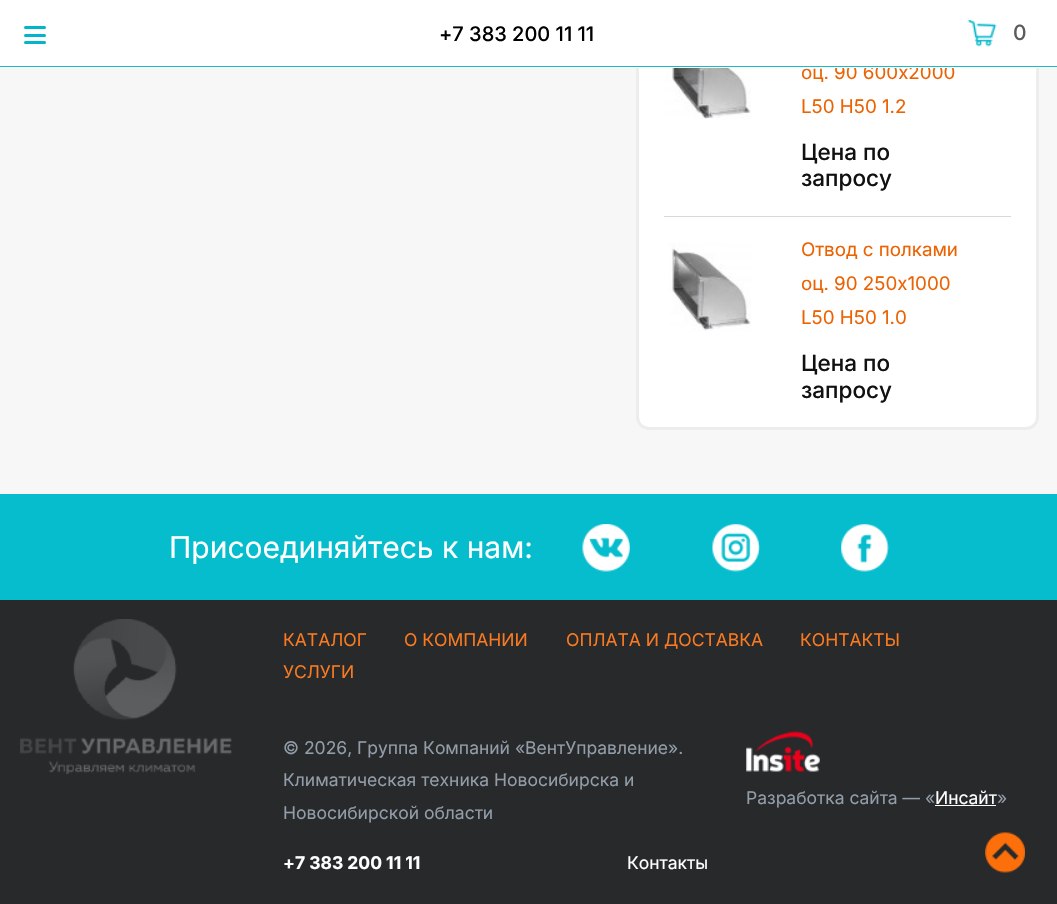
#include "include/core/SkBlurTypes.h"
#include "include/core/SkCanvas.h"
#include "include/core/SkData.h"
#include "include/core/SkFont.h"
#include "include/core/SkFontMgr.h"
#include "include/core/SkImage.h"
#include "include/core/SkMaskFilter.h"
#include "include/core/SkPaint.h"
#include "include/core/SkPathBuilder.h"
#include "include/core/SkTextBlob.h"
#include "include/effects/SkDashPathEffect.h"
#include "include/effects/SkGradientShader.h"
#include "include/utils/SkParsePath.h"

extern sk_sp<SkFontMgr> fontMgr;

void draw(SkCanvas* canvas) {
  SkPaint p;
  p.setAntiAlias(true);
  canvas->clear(SkColorSetRGB(247, 247, 247));
  p.setColor(SK_ColorWHITE);
  canvas->drawRoundRect(SkRect::MakeLTRB(637.5f, -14.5f, 1037.5f, 428.5f), 11.5f, 11.5f, p);
  p.setStyle(SkPaint::kStroke_Style);
  p.setStrokeWidth(3);
  p.setColor(SkColorSetRGB(237, 237, 237));
  canvas->drawRoundRect(SkRect::MakeLTRB(637.5f, -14.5f, 1037.5f, 428.5f), 11.5f, 11.5f, p);
  canvas->drawImageRect(SkImages::DeferredFromEncodedData(SkData::MakeFromFileName("images/2.png")), SkRect::MakeLTRB(665, 68, 751, 119), SkSamplingOptions());
  p.setStyle(SkPaint::kFill_Style);
  p.setColor(SkColorSetRGB(217, 217, 217));
  canvas->drawRect(SkRect::MakeLTRB(664, 216, 1011, 217), p);
  canvas->drawImageRect(SkImages::DeferredFromEncodedData(SkData::MakeFromFileName("images/3.png")), SkRect::MakeLTRB(669, 243, 751, 331), SkSamplingOptions());
  p.setColor(SkColorSetRGB(6, 189, 205));
  canvas->drawRect(SkRect::MakeLTRB(0, 494, 1057, 600), p);
  canvas->drawImageRect(SkImages::DeferredFromEncodedData(SkData::MakeFromFileName("images/4.png")), SkRect::MakeLTRB(582, 524, 630, 572), SkSamplingOptions());
  canvas->drawImageRect(SkImages::DeferredFromEncodedData(SkData::MakeFromFileName("images/5.png")), SkRect::MakeLTRB(712, 524, 760, 572), SkSamplingOptions());
  canvas->drawImageRect(SkImages::DeferredFromEncodedData(SkData::MakeFromFileName("images/6.png")), SkRect::MakeLTRB(841, 524, 889, 572), SkSamplingOptions());
  p.setColor(SkColorSetRGB(39, 41, 43));
  canvas->drawRect(SkRect::MakeLTRB(0, 600, 1057, 904), p);
  canvas->drawImageRect(SkImages::DeferredFromEncodedData(SkData::MakeFromFileName("images/7.png")), SkRect::MakeLTRB(20, 619, 232, 774), SkSamplingOptions());
  canvas->drawImageRect(SkImages::DeferredFromEncodedData(SkData::MakeFromFileName("images/8.png")), SkRect::MakeLTRB(746, 731, 820, 772), SkSamplingOptions());
  p.setColor(SK_ColorWHITE);
  canvas->drawRect(SkRect::MakeLTRB(935, 805, 996, 806), p);
  canvas->drawImageRect(SkImages::DeferredFromEncodedData(SkData::MakeFromFileName("images/9.png")), SkRect::MakeLTRB(985, 832, 1025, 873), SkSamplingOptions());
  SkFont font1(fontMgr->matchFamilyStyle("Inter", SkFontStyle::Normal()), 18.75f);
  font1.setSubpixel(true);
  p.setColor(SkColorSetRGB(236, 98, 1));
  canvas->drawString("оц. 90 600х2000", 801, 79, font1, p);
  p.setColor(SK_ColorWHITE);
  canvas->drawRect(SkRect::MakeLTRB(0, 0, 1057, 68), p);
  p.setColor(SkColorSetRGB(0, 182, 202));
  canvas->drawRoundRect(SkRect::MakeLTRB(24, 41, 46, 44), 1.5f, 1.5f, p);
  canvas->drawRoundRect(SkRect::MakeLTRB(24, 34, 46, 37), 1.5f, 1.5f, p);
  canvas->drawRoundRect(SkRect::MakeLTRB(24, 26, 46, 29), 1.5f, 1.5f, p);
  SkFont font2(fontMgr->matchFamilyStyle("Inter", SkFontStyle(500, SkFontStyle::kNormal_Width, SkFontStyle::kUpright_Slant)), 21);
  font2.setSubpixel(true);
  p.setColor(SkColorSetRGB(92, 92, 92));
  canvas->drawString("0", 1013, 40, font2, p);
  canvas->drawImageRect(SkImages::DeferredFromEncodedData(SkData::MakeFromFileName("images/1.png")), SkRect::MakeLTRB(967, 20, 997, 47), SkSamplingOptions());
  SkFont font3(fontMgr->matchFamilyStyle("Inter", SkFontStyle(500, SkFontStyle::kNormal_Width, SkFontStyle::kUpright_Slant)), 20);
  font3.setSubpixel(true);
  p.setColor(SK_ColorBLACK);
  canvas->drawString("+7 383 200 11 11", 439, 41, font3, p);
  p.setColor(SkColorSetRGB(19, 190, 202));
  canvas->drawRect(SkRect::MakeLTRB(0, 66, 1057, 67), p);
  p.setColor(SkColorSetRGB(236, 98, 1));
  canvas->drawString("L50 H50 1.2", 801, 113, font1, p);
  SkFont font4(fontMgr->matchFamilyStyle("Inter", SkFontStyle(500, SkFontStyle::kNormal_Width, SkFontStyle::kUpright_Slant)), 22.5f);
  font4.setSubpixel(true);
  p.setColor(SkColorSetRGB(17, 17, 17));
  canvas->drawString("Цена по", 801, 160, font4, p);
  canvas->drawString("запросу", 801, 186, font4, p);
  p.setColor(SkColorSetRGB(236, 98, 1));
  canvas->drawString("Отвод с полками", 801, 256, font1, p);
  canvas->drawString("оц. 90 250х1000", 801, 290, font1, p);
  canvas->drawString("L50 H50 1.0", 801, 324, font1, p);
  p.setColor(SkColorSetRGB(17, 17, 17));
  canvas->drawString("Цена по", 801, 371, font4, p);
  canvas->drawString("запросу", 801, 398, font4, p);
  SkFont font5(fontMgr->matchFamilyStyle("Inter", SkFontStyle::Normal()), 30);
  font5.setSubpixel(true);
  p.setColor(SK_ColorWHITE);
  canvas->drawString("Присоединяйтесь к нам:", 169, 558, font5, p);
  SkFont font6(fontMgr->matchFamilyStyle("Inter", SkFontStyle::Normal()), 17.5f);
  font6.setSubpixel(true);
  p.setColor(SkColorSetRGB(249, 122, 32));
  canvas->drawString("КАТАЛОГ", 283, 646, font6, p);
  canvas->drawString("О КОМПАНИИ", 404, 646, font6, p);
  canvas->drawString("ОПЛАТА И ДОСТАВКА", 566, 646, font6, p);
  canvas->drawString("КОНТАКТЫ", 800, 646, font6, p);
  canvas->drawString("УСЛУГИ", 283, 678, font6, p);
  p.setColor(SkColorSetRGB(146, 157, 169));
  canvas->drawString("© 2026, Группа Компаний «ВентУправление».", 283, 754, font6, p);
  canvas->drawString("Климатическая техника Новосибирска и", 283, 786, font6, p);
  canvas->drawString("Новосибирской области", 283, 819, font6, p);
  SkFont font7(fontMgr->matchFamilyStyle("Inter", SkFontStyle::Bold()), 17.5f);
  font7.setSubpixel(true);
  p.setColor(SK_ColorWHITE);
  canvas->drawString("+7 383 200 11 11", 283, 869, font7, p);
  canvas->drawString("Контакты", 627, 869, font6, p);
  p.setColor(SkColorSetRGB(146, 157, 169));
  canvas->drawString("Разработка сайта — «", 746, 804, font6, p);
  p.setColor(SK_ColorWHITE);
  canvas->drawString("Инсайт", 935, 804, font6, p);
  p.setColor(SkColorSetRGB(146, 157, 169));
  canvas->drawString("»", 997, 804, font6, p);
}
